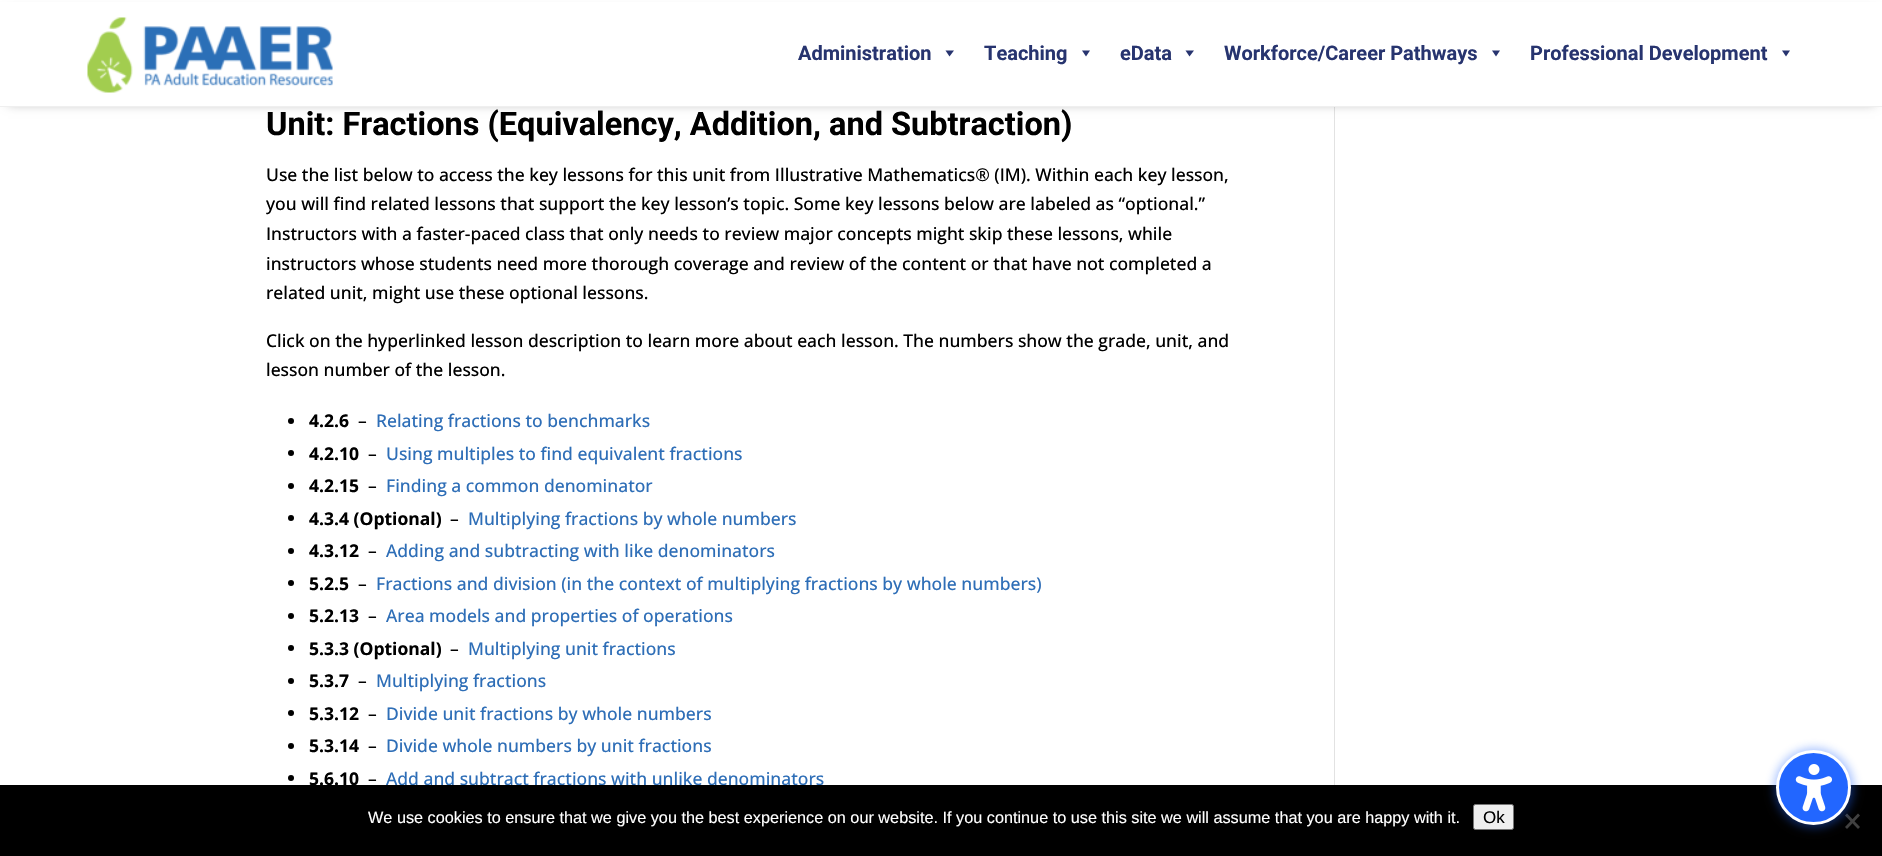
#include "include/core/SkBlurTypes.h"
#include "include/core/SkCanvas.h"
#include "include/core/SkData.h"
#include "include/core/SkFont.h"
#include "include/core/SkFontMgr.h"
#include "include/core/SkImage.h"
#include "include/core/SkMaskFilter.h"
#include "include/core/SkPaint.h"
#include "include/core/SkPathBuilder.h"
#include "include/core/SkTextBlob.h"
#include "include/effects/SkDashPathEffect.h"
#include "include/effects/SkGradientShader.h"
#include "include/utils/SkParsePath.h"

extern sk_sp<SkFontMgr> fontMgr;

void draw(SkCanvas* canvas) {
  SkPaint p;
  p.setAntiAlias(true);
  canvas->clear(SK_ColorWHITE);
  p.setColor(SkColorSetRGB(226, 226, 226));
  canvas->drawRect(SkRect::MakeLTRB(1334, 107, 1335, 785), p);
  p.setColor(SkColorSetARGB(77, 0, 0, 0));
  p.setMaskFilter(SkMaskFilter::MakeBlur(kNormal_SkBlurStyle, 5));
  canvas->drawRect(SkRect::MakeLTRB(8, 11, 1875, 104), p);
  p.setMaskFilter(nullptr);
  p.setColor(SK_ColorWHITE);
  canvas->drawRect(SkRect::MakeLTRB(0, 2, 1882, 106), p);
  p.setColor(SkColorSetRGB(239, 239, 239));
  canvas->drawRect(SkRect::MakeLTRB(0, 106, 1882, 107), p);
  canvas->drawImageRect(SkImages::DeferredFromEncodedData(SkData::MakeFromFileName("images/1.png")), SkRect::MakeLTRB(87, 17, 333, 93), SkSamplingOptions());
  p.setColor(SkColorSetRGB(39, 52, 111));
  canvas->drawPath(SkPathBuilder().moveTo(954, 50.5f).lineTo(949.5f, 56.5f).lineTo(945.5f, 50.5f).close().detach(), p);
  canvas->drawPath(SkPathBuilder().moveTo(1090, 50.5f).lineTo(1086, 56.5f).lineTo(1082, 50.5f).close().detach(), p);
  canvas->drawPath(SkPathBuilder().moveTo(1194, 50.5f).lineTo(1189.5f, 56.5f).lineTo(1185.5f, 50.5f).close().detach(), p);
  canvas->drawPath(SkPathBuilder().moveTo(1500, 50.5f).lineTo(1496, 56.5f).lineTo(1492, 50.5f).close().detach(), p);
  canvas->drawPath(SkPathBuilder().moveTo(1790, 50.5f).lineTo(1786, 56.5f).lineTo(1782, 50.5f).close().detach(), p);
  p.setColor(SK_ColorBLACK);
  canvas->drawCircle(291, 421, 3, p);
  canvas->drawCircle(291, 453, 3, p);
  canvas->drawCircle(291, 486, 3, p);
  canvas->drawCircle(291, 518, 3, p);
  canvas->drawCircle(291, 551, 3, p);
  canvas->drawCircle(291, 583, 3, p);
  canvas->drawCircle(291, 616, 3, p);
  canvas->drawCircle(291, 648, 3, p);
  canvas->drawCircle(291, 681, 3, p);
  canvas->drawCircle(291, 713, 3, p);
  canvas->drawCircle(291, 746, 3, p);
  canvas->drawCircle(291, 778, 3, p);
  SkFont font1(fontMgr->matchFamilyStyle("Roboto", SkFontStyle::Bold()), 20);
  font1.setSubpixel(true);
  p.setColor(SkColorSetRGB(39, 52, 111));
  canvas->drawString("Administration", 798, 60, font1, p);
  canvas->drawString("Teaching", 984, 60, font1, p);
  canvas->drawString("eData", 1120, 60, font1, p);
  canvas->drawString("Workforce/Career Pathways", 1224, 60, font1, p);
  canvas->drawString("Professional Development", 1530, 60, font1, p);
  SkFont font2(fontMgr->matchFamilyStyle("Roboto", SkFontStyle::Bold()), 32.5f);
  font2.setSubpixel(true);
  p.setColor(SK_ColorBLACK);
  canvas->drawString("Unit: Fractions (Equivalency, Addition, and Subtraction)", 266, 135, font2, p);
  SkFont font3(fontMgr->matchFamilyStyle("Open Sans", SkFontStyle(500, SkFontStyle::kNormal_Width, SkFontStyle::kUpright_Slant)), 17.5f);
  font3.setSubpixel(true);
  canvas->drawString("Use the list below to access the key lessons for this unit from Illustrative Mathematics® (IM). Within each key lesson,", 266, 181, font3, p);
  canvas->drawString("you will find related lessons that support the key lesson’s topic. Some key lessons below are labeled as “optional.”", 266, 210, font3, p);
  canvas->drawString("Instructors with a faster-paced class that only needs to review major concepts might skip these lessons, while", 266, 240, font3, p);
  canvas->drawString("instructors whose students need more thorough coverage and review of the content or that have not completed a", 266, 270, font3, p);
  canvas->drawString("related unit, might use these optional lessons.", 266, 299, font3, p);
  canvas->drawString("Click on the hyperlinked lesson description to learn more about each lesson. The numbers show the grade, unit, and", 266, 347, font3, p);
  canvas->drawString("lesson number of the lesson.", 266, 376, font3, p);
  SkFont font4(fontMgr->matchFamilyStyle("Open Sans", SkFontStyle::Bold()), 17.5f);
  font4.setSubpixel(true);
  canvas->drawString("4.2.6", 309, 427, font4, p);
  canvas->drawString("–", 358, 427, font3, p);
  p.setColor(SkColorSetRGB(46, 110, 183));
  canvas->drawString("Relating fractions to benchmarks", 376, 427, font3, p);
  p.setColor(SK_ColorBLACK);
  canvas->drawString("4.2.10", 309, 460, font4, p);
  canvas->drawString("–", 368, 460, font3, p);
  p.setColor(SkColorSetRGB(46, 110, 183));
  canvas->drawString("Using multiples to find equivalent fractions", 386, 460, font3, p);
  p.setColor(SK_ColorBLACK);
  canvas->drawString("4.2.15", 309, 492, font4, p);
  canvas->drawString("–", 368, 492, font3, p);
  p.setColor(SkColorSetRGB(46, 110, 183));
  canvas->drawString("Finding a common denominator", 386, 492, font3, p);
  p.setColor(SK_ColorBLACK);
  canvas->drawString("4.3.4 (Optional)", 309, 525, font4, p);
  canvas->drawString("–", 450, 525, font3, p);
  p.setColor(SkColorSetRGB(46, 110, 183));
  canvas->drawString("Multiplying fractions by whole numbers", 468, 525, font3, p);
  p.setColor(SK_ColorBLACK);
  canvas->drawString("4.3.12", 309, 557, font4, p);
  canvas->drawString("–", 368, 557, font3, p);
  p.setColor(SkColorSetRGB(46, 110, 183));
  canvas->drawString("Adding and subtracting with like denominators", 386, 557, font3, p);
  p.setColor(SK_ColorBLACK);
  canvas->drawString("5.2.5", 309, 590, font4, p);
  canvas->drawString("–", 358, 590, font3, p);
  p.setColor(SkColorSetRGB(46, 110, 183));
  canvas->drawString("Fractions and division (in the context of multiplying fractions by whole numbers)", 376, 590, font3, p);
  p.setColor(SK_ColorBLACK);
  canvas->drawString("5.2.13", 309, 622, font4, p);
  canvas->drawString("–", 368, 622, font3, p);
  p.setColor(SkColorSetRGB(46, 110, 183));
  canvas->drawString("Area models and properties of operations", 386, 622, font3, p);
  p.setColor(SK_ColorBLACK);
  canvas->drawString("5.3.3 (Optional)", 309, 655, font4, p);
  canvas->drawString("–", 450, 655, font3, p);
  p.setColor(SkColorSetRGB(46, 110, 183));
  canvas->drawString("Multiplying unit fractions", 468, 655, font3, p);
  p.setColor(SK_ColorBLACK);
  canvas->drawString("5.3.7", 309, 687, font4, p);
  canvas->drawString("–", 358, 687, font3, p);
  p.setColor(SkColorSetRGB(46, 110, 183));
  canvas->drawString("Multiplying fractions", 376, 687, font3, p);
  p.setColor(SK_ColorBLACK);
  canvas->drawString("5.3.12", 309, 720, font4, p);
  canvas->drawString("–", 368, 720, font3, p);
  p.setColor(SkColorSetRGB(46, 110, 183));
  canvas->drawString("Divide unit fractions by whole numbers", 386, 720, font3, p);
  p.setColor(SK_ColorBLACK);
  canvas->drawString("5.3.14", 309, 752, font4, p);
  canvas->drawString("–", 368, 752, font3, p);
  p.setColor(SkColorSetRGB(46, 110, 183));
  canvas->drawString("Divide whole numbers by unit fractions", 386, 752, font3, p);
  p.setColor(SK_ColorBLACK);
  canvas->drawString("5.6.10", 309, 785, font4, p);
  canvas->drawString("–", 368, 785, font3, p);
  p.setColor(SkColorSetRGB(46, 110, 183));
  canvas->drawString("Add and subtract fractions with unlike denominators", 386, 785, font3, p);
  p.setColor(SK_ColorBLACK);
  canvas->drawRect(SkRect::MakeLTRB(0, 785, 1882, 856), p);
  SkFont font5(fontMgr->matchFamilyStyle("Liberation Sans", SkFontStyle::Normal()), 16.25f);
  font5.setSubpixel(true);
  p.setColor(SK_ColorWHITE);
  canvas->drawString("We use cookies to ensure that we give you the best experience on our website. If you continue to use this site we will assume that you are happy with it.", 368, 823, font5, p);
  p.setColor(SkColorSetRGB(239, 239, 239));
  canvas->drawRoundRect(SkRect::MakeLTRB(1473.5f, 804.5f, 1513.5f, 829.5f), 2, 2, p);
  p.setStyle(SkPaint::kStroke_Style);
  p.setStrokeWidth(1);
  p.setColor(SkColorSetRGB(118, 118, 118));
  canvas->drawRoundRect(SkRect::MakeLTRB(1473.5f, 804.5f, 1513.5f, 829.5f), 2, 2, p);
  SkFont font6(fontMgr->matchFamilyStyle("Liberation Sans", SkFontStyle::Normal()), 17);
  font6.setSubpixel(true);
  p.setStyle(SkPaint::kFill_Style);
  p.setColor(SK_ColorBLACK);
  canvas->drawString("Ok", 1483, 823, font6, p);
  p.setColor(SkColorSetRGB(64, 64, 64));
  canvas->drawPath(SkPathBuilder().moveTo(1858, 813.5f).lineTo(1860, 815.5f).lineTo(1847, 829).lineTo(1845, 827).close().detach(), p);
  canvas->drawPath(SkPathBuilder().moveTo(1845, 815.5f).lineTo(1847, 813.5f).lineTo(1860, 827).lineTo(1858, 829).close().detach(), p);
  p.setColor(SkColorSetARGB(102, 34, 102, 255));
  p.setMaskFilter(SkMaskFilter::MakeBlur(kNormal_SkBlurStyle, 5));
  canvas->drawRoundRect(SkRect::MakeLTRB(1774, 748, 1854, 828), 40, 40, p);
  p.setMaskFilter(nullptr);
  p.setColor(SkColorSetRGB(34, 102, 255));
  canvas->drawCircle(1813.5f, 787.5f, 36, p);
  p.setStyle(SkPaint::kStroke_Style);
  p.setStrokeWidth(3);
  p.setColor(SK_ColorWHITE);
  canvas->drawCircle(1813.5f, 787.5f, 36, p);
  canvas->drawImageRect(SkImages::DeferredFromEncodedData(SkData::MakeFromFileName("images/2.png")), SkRect::MakeLTRB(1795, 764, 1832, 812), SkSamplingOptions());
}
